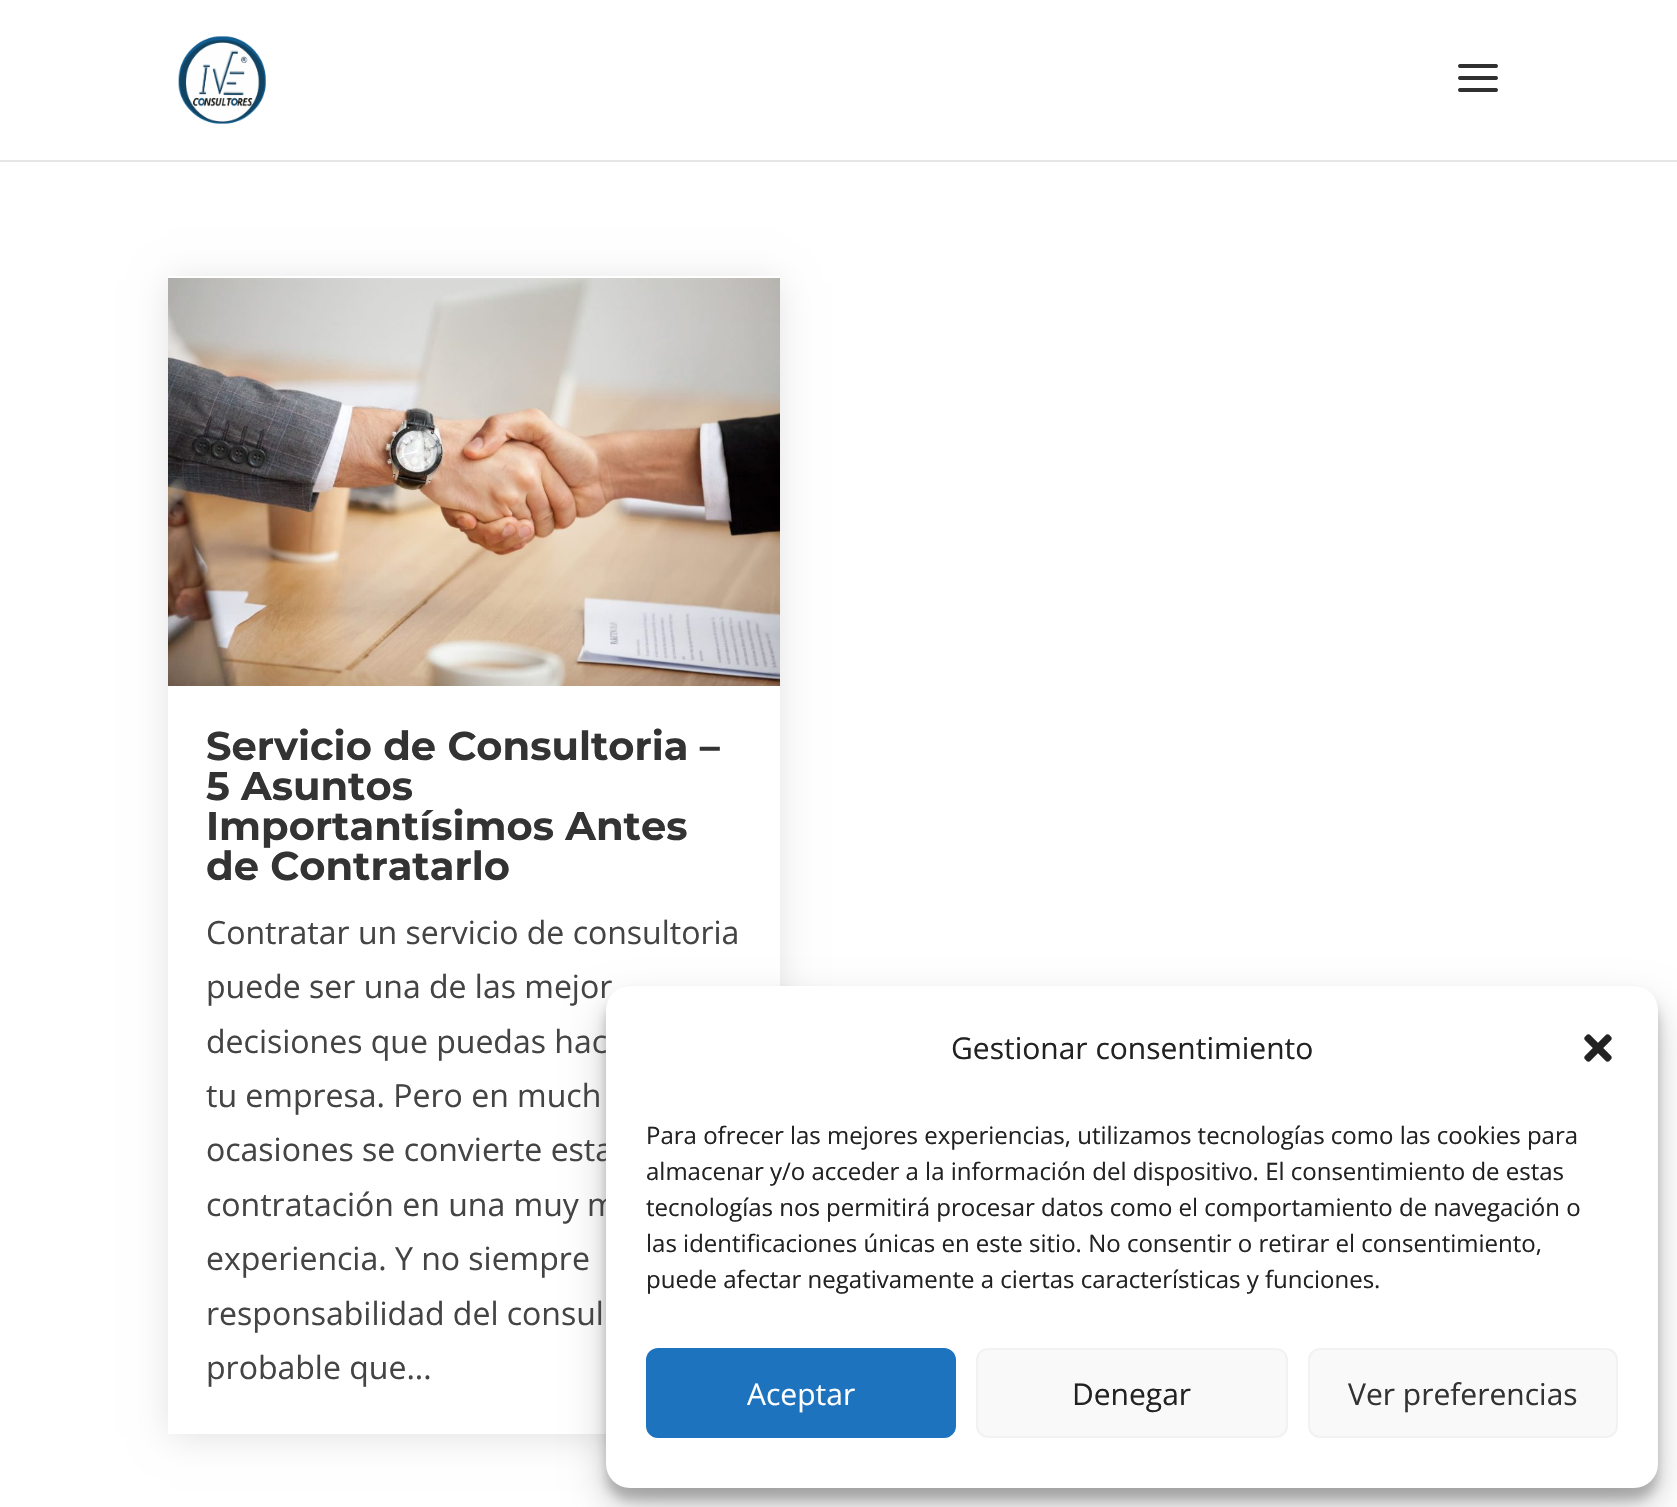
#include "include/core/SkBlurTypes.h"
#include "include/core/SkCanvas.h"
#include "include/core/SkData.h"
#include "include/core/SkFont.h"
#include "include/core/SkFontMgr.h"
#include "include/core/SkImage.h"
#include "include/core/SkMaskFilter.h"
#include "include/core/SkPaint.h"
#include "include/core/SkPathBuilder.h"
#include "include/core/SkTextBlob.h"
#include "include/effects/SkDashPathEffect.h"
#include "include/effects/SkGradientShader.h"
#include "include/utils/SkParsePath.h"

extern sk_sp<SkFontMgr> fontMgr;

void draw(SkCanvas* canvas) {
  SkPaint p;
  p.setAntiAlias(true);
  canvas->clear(SK_ColorWHITE);
  p.setColor(SkColorSetRGB(230, 230, 230));
  canvas->drawRect(SkRect::MakeLTRB(0, 160, 1677, 162), p);
  canvas->drawImageRect(SkImages::DeferredFromEncodedData(SkData::MakeFromFileName("images/1.png")), SkRect::MakeLTRB(178, 36, 266, 124), SkSamplingOptions());
  canvas->drawImageRect(SkImages::DeferredFromEncodedData(SkData::MakeFromFileName("images/2.png")), SkRect::MakeLTRB(1458, 64, 1498, 92), SkSamplingOptions());
  canvas->save();
  canvas->clipPath(SkPathBuilder(SkPathFillType::kEvenOdd).moveTo(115, 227).lineTo(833, 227).lineTo(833, 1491).lineTo(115, 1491).close().moveTo(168, 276).lineTo(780, 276).lineTo(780, 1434).lineTo(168, 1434).close().detach(), true);
  p.setColor(SkColorSetARGB(31, 0, 0, 0));
  p.setMaskFilter(SkMaskFilter::MakeBlur(kNormal_SkBlurStyle, 18));
  canvas->drawRect(SkRect::MakeLTRB(170, 282, 778, 1436), p);
  p.setMaskFilter(nullptr);
  canvas->restore();
  canvas->drawImageRect(SkImages::DeferredFromEncodedData(SkData::MakeFromFileName("images/3.png")), SkRect::MakeLTRB(168, 278, 780, 686), SkSamplingOptions());
  p.setColor(SkColorSetARGB(59, 0, 0, 0));
  p.setMaskFilter(SkMaskFilter::MakeBlur(kNormal_SkBlurStyle, 6));
  canvas->drawRoundRect(SkRect::MakeLTRB(606, 998, 1658, 1500), 24, 24, p);
  p.setMaskFilter(nullptr);
  p.setColor(SkColorSetARGB(48, 0, 0, 0));
  p.setMaskFilter(SkMaskFilter::MakeBlur(kNormal_SkBlurStyle, 20));
  canvas->drawRoundRect(SkRect::MakeLTRB(606, 1006, 1658, 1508), 24, 24, p);
  p.setMaskFilter(nullptr);
  SkFont font1(fontMgr->matchFamilyStyle("Montserrat", SkFontStyle::Bold()), 40);
  font1.setSubpixel(true);
  p.setColor(SkColorSetRGB(51, 51, 51));
  canvas->drawString("Servicio de Consultoria –", 206, 760, font1, p);
  canvas->drawString("5 Asuntos", 206, 800, font1, p);
  canvas->drawString("Importantísimos Antes", 206, 840, font1, p);
  canvas->drawString("de Contratarlo", 206, 880, font1, p);
  SkFont font2(fontMgr->matchFamilyStyle("Open Sans", SkFontStyle::Normal()), 32);
  font2.setSubpixel(true);
  p.setColor(SkColorSetRGB(68, 68, 68));
  canvas->drawString("Contratar un servicio de consultoria", 206, 944, font2, p);
  canvas->drawString("puede ser una de las mejor", 206, 998, font2, p);
  canvas->drawString("decisiones que puedas hac", 206, 1053, font2, p);
  canvas->drawString("tu empresa. Pero en much", 206, 1107, font2, p);
  canvas->drawString("ocasiones se convierte esta", 206, 1161, font2, p);
  canvas->drawString("contratación en una muy m", 206, 1216, font2, p);
  canvas->drawString("experiencia. Y no siempre", 206, 1270, font2, p);
  canvas->drawString("responsabilidad del consul", 206, 1325, font2, p);
  canvas->drawString("probable que...", 206, 1379, font2, p);
  p.setColor(SK_ColorWHITE);
  canvas->drawRoundRect(SkRect::MakeLTRB(606, 986, 1658, 1488), 24, 24, p);
  SkFont font3(fontMgr->matchFamilyStyle("Open Sans", SkFontStyle::Normal()), 30);
  font3.setSubpixel(true);
  p.setColor(SkColorSetRGB(34, 34, 34));
  canvas->drawString("Gestionar consentimiento", 951, 1059, font3, p);
  canvas->drawImageRect(SkImages::DeferredFromEncodedData(SkData::MakeFromFileName("images/4.png")), SkRect::MakeLTRB(1584, 1034, 1612, 1062), SkSamplingOptions());
  SkFont font4(fontMgr->matchFamilyStyle("Open Sans", SkFontStyle::Normal()), 24);
  font4.setSubpixel(true);
  canvas->drawString("Para ofrecer las mejores experiencias, utilizamos tecnologías como las cookies para", 646, 1144, font4, p);
  canvas->drawString("almacenar y/o acceder a la información del dispositivo. El consentimiento de estas", 646, 1180, font4, p);
  canvas->drawString("tecnologías nos permitirá procesar datos como el comportamiento de navegación o", 646, 1216, font4, p);
  canvas->drawString("las identificaciones únicas en este sitio. No consentir o retirar el consentimiento,", 646, 1252, font4, p);
  canvas->drawString("puede afectar negativamente a ciertas características y funciones.", 646, 1288, font4, p);
  p.setColor(SkColorSetRGB(30, 115, 190));
  canvas->drawRoundRect(SkRect::MakeLTRB(647, 1349, 955, 1437), 11, 11, p);
  p.setStyle(SkPaint::kStroke_Style);
  p.setStrokeWidth(2);
  canvas->drawRoundRect(SkRect::MakeLTRB(647, 1349, 955, 1437), 11, 11, p);
  p.setStyle(SkPaint::kFill_Style);
  p.setColor(SK_ColorWHITE);
  canvas->drawString("Aceptar", 747, 1405, font3, p);
  p.setColor(SkColorSetRGB(249, 249, 249));
  canvas->drawRoundRect(SkRect::MakeLTRB(977, 1349, 1287, 1437), 11, 11, p);
  p.setStyle(SkPaint::kStroke_Style);
  p.setColor(SkColorSetRGB(242, 242, 242));
  canvas->drawRoundRect(SkRect::MakeLTRB(977, 1349, 1287, 1437), 11, 11, p);
  p.setStyle(SkPaint::kFill_Style);
  p.setColor(SkColorSetRGB(34, 34, 34));
  canvas->drawString("Denegar", 1072, 1405, font3, p);
  p.setColor(SkColorSetRGB(249, 249, 249));
  canvas->drawRoundRect(SkRect::MakeLTRB(1309, 1349, 1617, 1437), 11, 11, p);
  p.setStyle(SkPaint::kStroke_Style);
  p.setColor(SkColorSetRGB(242, 242, 242));
  canvas->drawRoundRect(SkRect::MakeLTRB(1309, 1349, 1617, 1437), 11, 11, p);
  p.setStyle(SkPaint::kFill_Style);
  p.setColor(SkColorSetRGB(51, 51, 51));
  canvas->drawString("Ver preferencias", 1348, 1405, font3, p);
}
